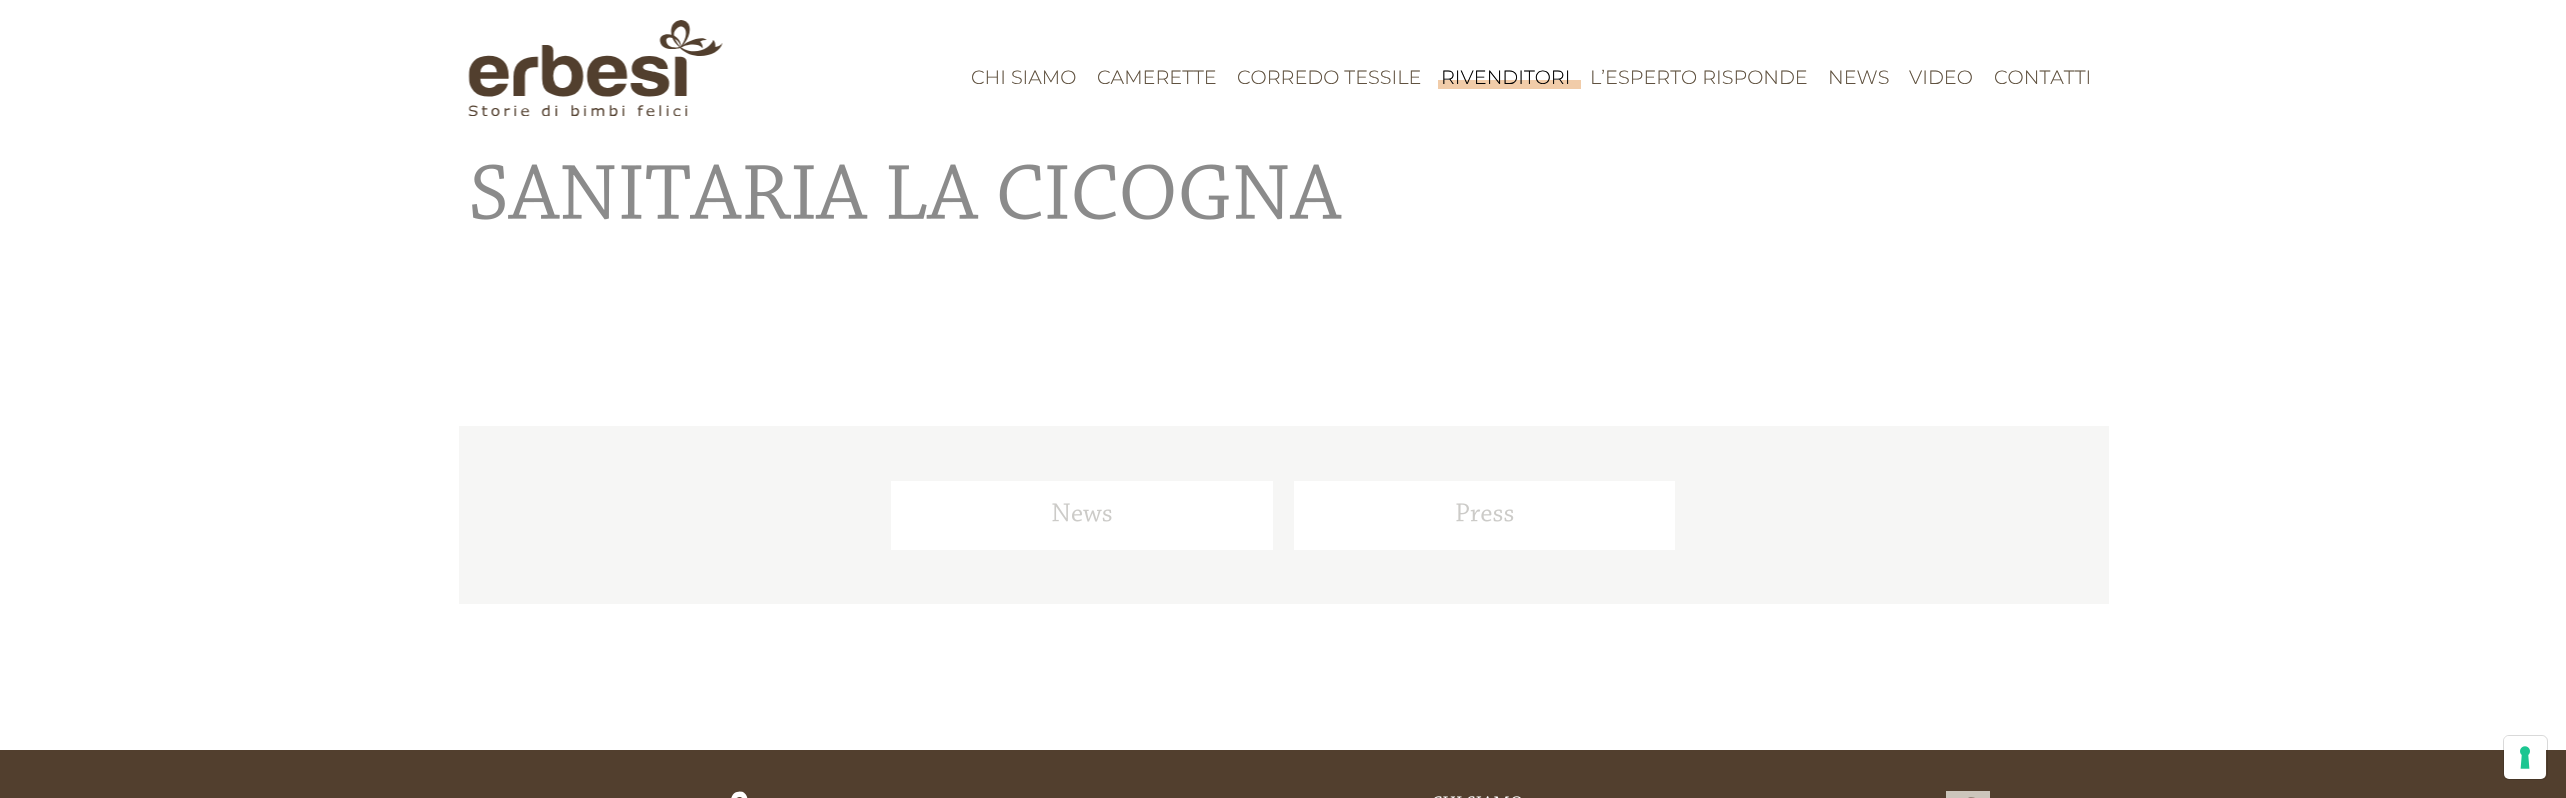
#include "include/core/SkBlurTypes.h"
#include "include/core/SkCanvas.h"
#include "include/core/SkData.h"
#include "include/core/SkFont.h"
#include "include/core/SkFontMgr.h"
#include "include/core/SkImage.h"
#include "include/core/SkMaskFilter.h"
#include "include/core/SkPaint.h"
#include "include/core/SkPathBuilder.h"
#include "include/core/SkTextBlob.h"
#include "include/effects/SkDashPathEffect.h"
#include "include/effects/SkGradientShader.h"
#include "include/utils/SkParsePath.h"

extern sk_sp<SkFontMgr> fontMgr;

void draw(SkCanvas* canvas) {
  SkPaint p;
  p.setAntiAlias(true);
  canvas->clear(SK_ColorWHITE);
  canvas->drawImageRect(SkImages::DeferredFromEncodedData(SkData::MakeFromFileName("images/1.png")), SkRect::MakeLTRB(468, 20, 723, 116), SkSamplingOptions());
  p.setColor(SkColorSetRGB(241, 204, 169));
  canvas->drawRect(SkRect::MakeLTRB(1438, 80, 1581, 89), p);
  canvas->drawImageRect(SkImages::DeferredFromEncodedData(SkData::MakeFromFileName("images/2.png")), SkRect::MakeLTRB(472, 164, 1342, 220), SkSamplingOptions());
  p.setColor(SkColorSetRGB(246, 246, 245));
  canvas->drawRect(SkRect::MakeLTRB(459, 426, 2109, 604), p);
  p.setColor(SK_ColorWHITE);
  canvas->drawRect(SkRect::MakeLTRB(891, 481, 1273, 550), p);
  canvas->drawImageRect(SkImages::DeferredFromEncodedData(SkData::MakeFromFileName("images/3.png")), SkRect::MakeLTRB(1052, 503, 1112, 522), SkSamplingOptions());
  canvas->drawRect(SkRect::MakeLTRB(1294, 481, 1675, 550), p);
  canvas->drawImageRect(SkImages::DeferredFromEncodedData(SkData::MakeFromFileName("images/4.png")), SkRect::MakeLTRB(1456, 503, 1514, 522), SkSamplingOptions());
  p.setColor(SkColorSetRGB(82, 63, 46));
  canvas->drawRect(SkRect::MakeLTRB(0, 750, 2566, 798), p);
  canvas->drawImageRect(SkImages::DeferredFromEncodedData(SkData::MakeFromFileName("images/5.png")), SkRect::MakeLTRB(731, 791, 748, 798), SkSamplingOptions());
  canvas->drawImageRect(SkImages::DeferredFromEncodedData(SkData::MakeFromFileName("images/6.png")), SkRect::MakeLTRB(1434, 796, 1521, 798), SkSamplingOptions());
  p.setColor(SkColorSetRGB(204, 197, 187));
  canvas->drawRect(SkRect::MakeLTRB(1946, 791, 1990, 798), p);
  canvas->drawImageRect(SkImages::DeferredFromEncodedData(SkData::MakeFromFileName("images/7.png")), SkRect::MakeLTRB(1968, 797, 1975, 798), SkSamplingOptions());
  p.setStyle(SkPaint::kStroke_Style);
  p.setStrokeWidth(1);
  p.setColor(SkColorSetARGB(38, 0, 0, 0));
  canvas->drawRoundRect(SkRect::MakeLTRB(2503.5f, 735.5f, 2547.5f, 779.5f), 5.5f, 5.5f, p);
  p.setStyle(SkPaint::kFill_Style);
  p.setColor(SK_ColorWHITE);
  canvas->drawRoundRect(SkRect::MakeLTRB(2504, 736, 2546, 779), 5, 5, p);
  canvas->drawImageRect(SkImages::DeferredFromEncodedData(SkData::MakeFromFileName("images/8.png")), SkRect::MakeLTRB(2520, 746, 2530, 769), SkSamplingOptions());
  SkFont font1(fontMgr->matchFamilyStyle("Montserrat", SkFontStyle(300, SkFontStyle::kNormal_Width, SkFontStyle::kUpright_Slant)), 19.25f);
  font1.setSubpixel(true);
  p.setColor(SkColorSetRGB(96, 82, 64));
  canvas->drawString("CHI SIAMO", 971, 84, font1, p);
  canvas->drawString("CAMERETTE", 1097, 84, font1, p);
  canvas->drawString("CORREDO TESSILE", 1237, 84, font1, p);
  p.setColor(SK_ColorBLACK);
  canvas->drawString("RIVENDITORI", 1441, 84, font1, p);
  p.setColor(SkColorSetRGB(96, 82, 64));
  canvas->drawString("L’ESPERTO RISPONDE", 1590, 84, font1, p);
  canvas->drawString("NEWS", 1828, 84, font1, p);
  canvas->drawString("VIDEO", 1909, 84, font1, p);
  canvas->drawString("CONTATTI", 1994, 84, font1, p);
}
